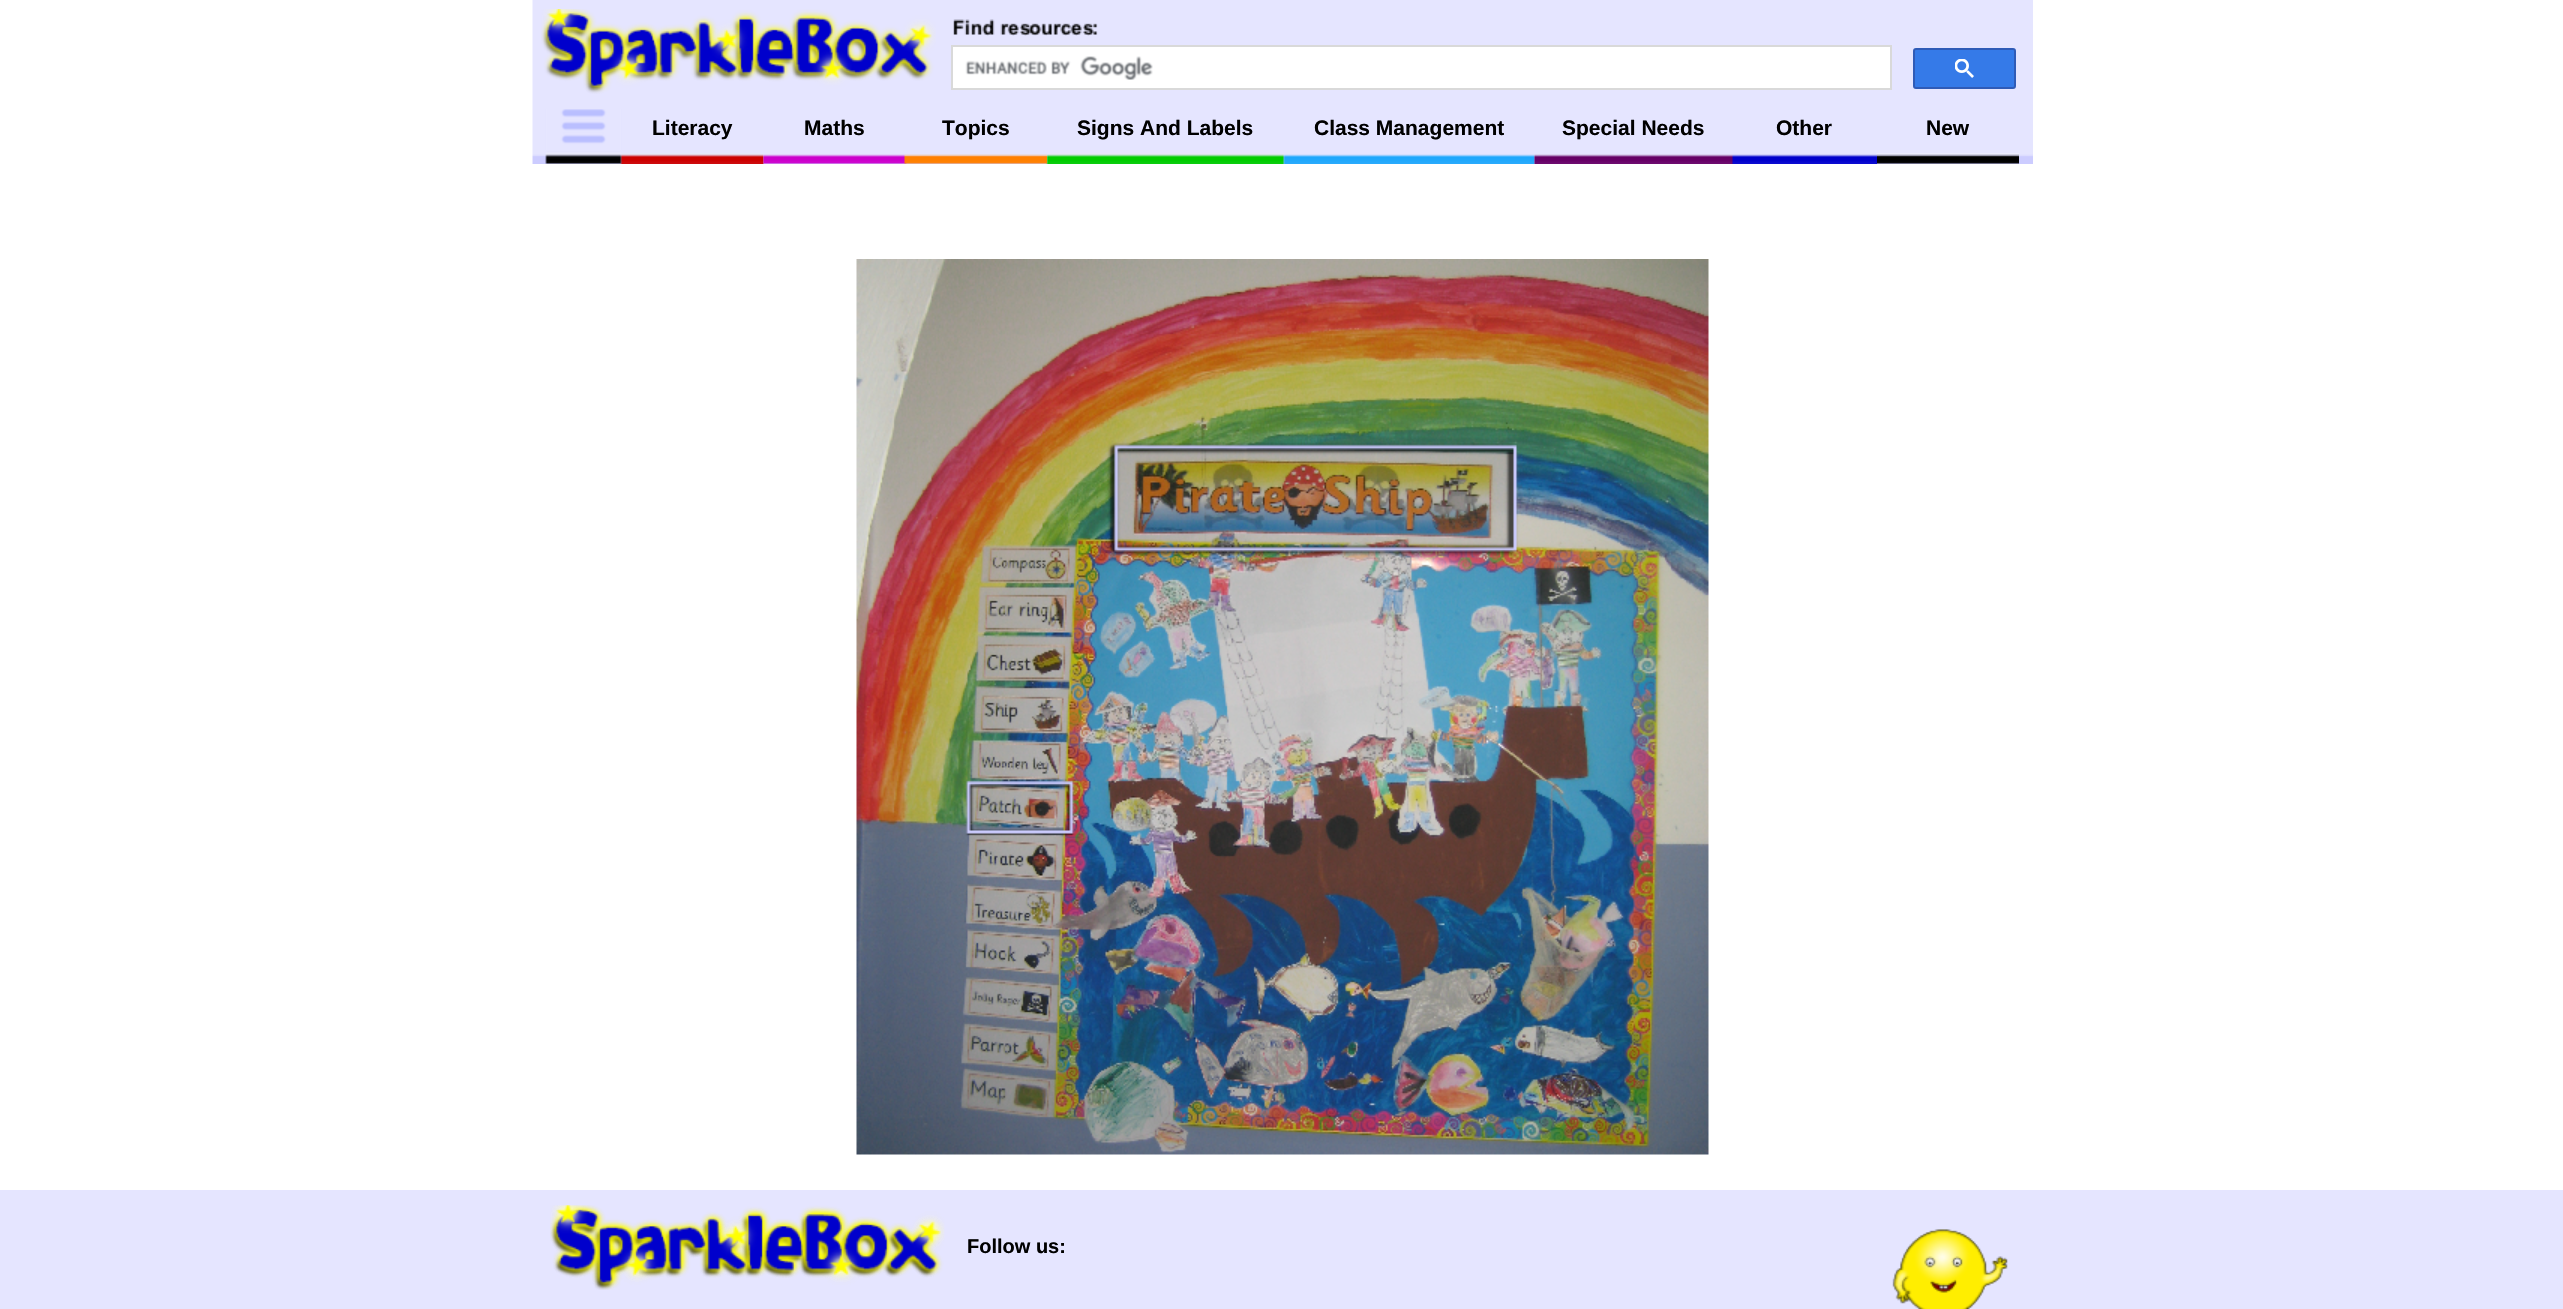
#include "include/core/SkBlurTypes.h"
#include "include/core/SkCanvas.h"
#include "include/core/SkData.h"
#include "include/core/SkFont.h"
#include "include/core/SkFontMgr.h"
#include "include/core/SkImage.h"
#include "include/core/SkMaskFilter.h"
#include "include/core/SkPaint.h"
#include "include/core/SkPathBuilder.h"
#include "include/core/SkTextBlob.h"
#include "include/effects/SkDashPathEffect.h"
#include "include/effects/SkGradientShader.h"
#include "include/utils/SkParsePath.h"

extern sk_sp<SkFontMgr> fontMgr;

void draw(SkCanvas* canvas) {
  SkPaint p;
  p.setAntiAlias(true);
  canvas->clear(SK_ColorWHITE);
  p.setColor(SkColorSetRGB(229, 229, 255));
  canvas->drawRect(SkRect::MakeLTRB(0, 1190, 2563, 1309), p);
  canvas->drawImageRect(SkImages::DeferredFromEncodedData(SkData::MakeFromFileName("images/1.png")), SkRect::MakeLTRB(532, 0, 2033, 164), SkSamplingOptions());
  canvas->drawImageRect(SkImages::DeferredFromEncodedData(SkData::MakeFromFileName("images/2.png")), SkRect::MakeLTRB(541, 9, 936, 94), SkSamplingOptions());
  canvas->drawImageRect(SkImages::DeferredFromEncodedData(SkData::MakeFromFileName("images/3.png")), SkRect::MakeLTRB(953, 19, 1098, 36), SkSamplingOptions());
  p.setColor(SK_ColorWHITE);
  canvas->drawRect(SkRect::MakeLTRB(952, 46, 1891, 89), p);
  p.setStyle(SkPaint::kStroke_Style);
  p.setStrokeWidth(2);
  p.setColor(SkColorSetRGB(217, 217, 217));
  canvas->drawRect(SkRect::MakeLTRB(952, 46, 1891, 89), p);
  canvas->drawImageRect(SkImages::DeferredFromEncodedData(SkData::MakeFromFileName("images/4.png")), SkRect::MakeLTRB(965, 56, 1153, 80), SkSamplingOptions());
  p.setStyle(SkPaint::kFill_Style);
  p.setColor(SkColorSetRGB(53, 122, 232));
  canvas->drawRoundRect(SkRect::MakeLTRB(1914, 49, 2015, 88), 2, 2, p);
  p.setStyle(SkPaint::kStroke_Style);
  p.setColor(SkColorSetRGB(47, 91, 183));
  canvas->drawRoundRect(SkRect::MakeLTRB(1914, 49, 2015, 88), 2, 2, p);
  canvas->drawImageRect(SkImages::DeferredFromEncodedData(SkData::MakeFromFileName("images/5.png")), SkRect::MakeLTRB(1955, 59, 1974, 78), SkSamplingOptions());
  canvas->drawImageRect(SkImages::DeferredFromEncodedData(SkData::MakeFromFileName("images/7.png")), SkRect::MakeLTRB(620, 153, 764, 164), SkSamplingOptions());
  canvas->drawImageRect(SkImages::DeferredFromEncodedData(SkData::MakeFromFileName("images/6.png")), SkRect::MakeLTRB(545, 109, 622, 164), SkSamplingOptions());
  canvas->drawImageRect(SkImages::DeferredFromEncodedData(SkData::MakeFromFileName("images/8.png")), SkRect::MakeLTRB(763, 154, 907, 164), SkSamplingOptions());
  canvas->drawImageRect(SkImages::DeferredFromEncodedData(SkData::MakeFromFileName("images/10.png")), SkRect::MakeLTRB(1046, 153, 1285, 164), SkSamplingOptions());
  canvas->drawImageRect(SkImages::DeferredFromEncodedData(SkData::MakeFromFileName("images/9.png")), SkRect::MakeLTRB(904, 154, 1047, 164), SkSamplingOptions());
  canvas->drawImageRect(SkImages::DeferredFromEncodedData(SkData::MakeFromFileName("images/11.png")), SkRect::MakeLTRB(1283, 154, 1535, 164), SkSamplingOptions());
  canvas->drawImageRect(SkImages::DeferredFromEncodedData(SkData::MakeFromFileName("images/12.png")), SkRect::MakeLTRB(1534, 154, 1733, 164), SkSamplingOptions());
  canvas->drawImageRect(SkImages::DeferredFromEncodedData(SkData::MakeFromFileName("images/14.png")), SkRect::MakeLTRB(1876, 153, 2019, 164), SkSamplingOptions());
  canvas->drawImageRect(SkImages::DeferredFromEncodedData(SkData::MakeFromFileName("images/13.png")), SkRect::MakeLTRB(1732, 154, 1877, 164), SkSamplingOptions());
  canvas->drawImageRect(SkImages::DeferredFromEncodedData(SkData::MakeFromFileName("images/15.png")), SkRect::MakeLTRB(856, 259, 1709, 1155), SkSamplingOptions());
  canvas->drawImageRect(SkImages::DeferredFromEncodedData(SkData::MakeFromFileName("images/16.png")), SkRect::MakeLTRB(550, 1205, 945, 1290), SkSamplingOptions());
  canvas->drawImageRect(SkImages::DeferredFromEncodedData(SkData::MakeFromFileName("images/17.png")), SkRect::MakeLTRB(550, 1205, 944, 1290), SkSamplingOptions());
  canvas->drawImageRect(SkImages::DeferredFromEncodedData(SkData::MakeFromFileName("images/19.png")), SkRect::MakeLTRB(1892, 1229, 2008, 1309), SkSamplingOptions());
  canvas->drawImageRect(SkImages::DeferredFromEncodedData(SkData::MakeFromFileName("images/18.png")), SkRect::MakeLTRB(1892, 1229, 2008, 1309), SkSamplingOptions());
  SkFont font1(fontMgr->matchFamilyStyle("Liberation Sans", SkFontStyle::Bold()), 21);
  font1.setSubpixel(true);
  p.setStyle(SkPaint::kFill_Style);
  p.setColor(SK_ColorBLACK);
  canvas->drawString("Literacy", 652, 135, font1, p);
  canvas->drawString("Maths", 804, 135, font1, p);
  canvas->drawString("Topics", 942, 135, font1, p);
  canvas->drawString("Signs And Labels", 1077, 135, font1, p);
  canvas->drawString("Class Management", 1314, 135, font1, p);
  canvas->drawString("Special Needs", 1562, 135, font1, p);
  canvas->drawString("Other", 1776, 135, font1, p);
  canvas->drawString("New", 1926, 135, font1, p);
  SkFont font2(fontMgr->matchFamilyStyle("Liberation Sans", SkFontStyle::Bold()), 20);
  font2.setSubpixel(true);
  canvas->drawString("Follow us:", 967, 1253, font2, p);
}
